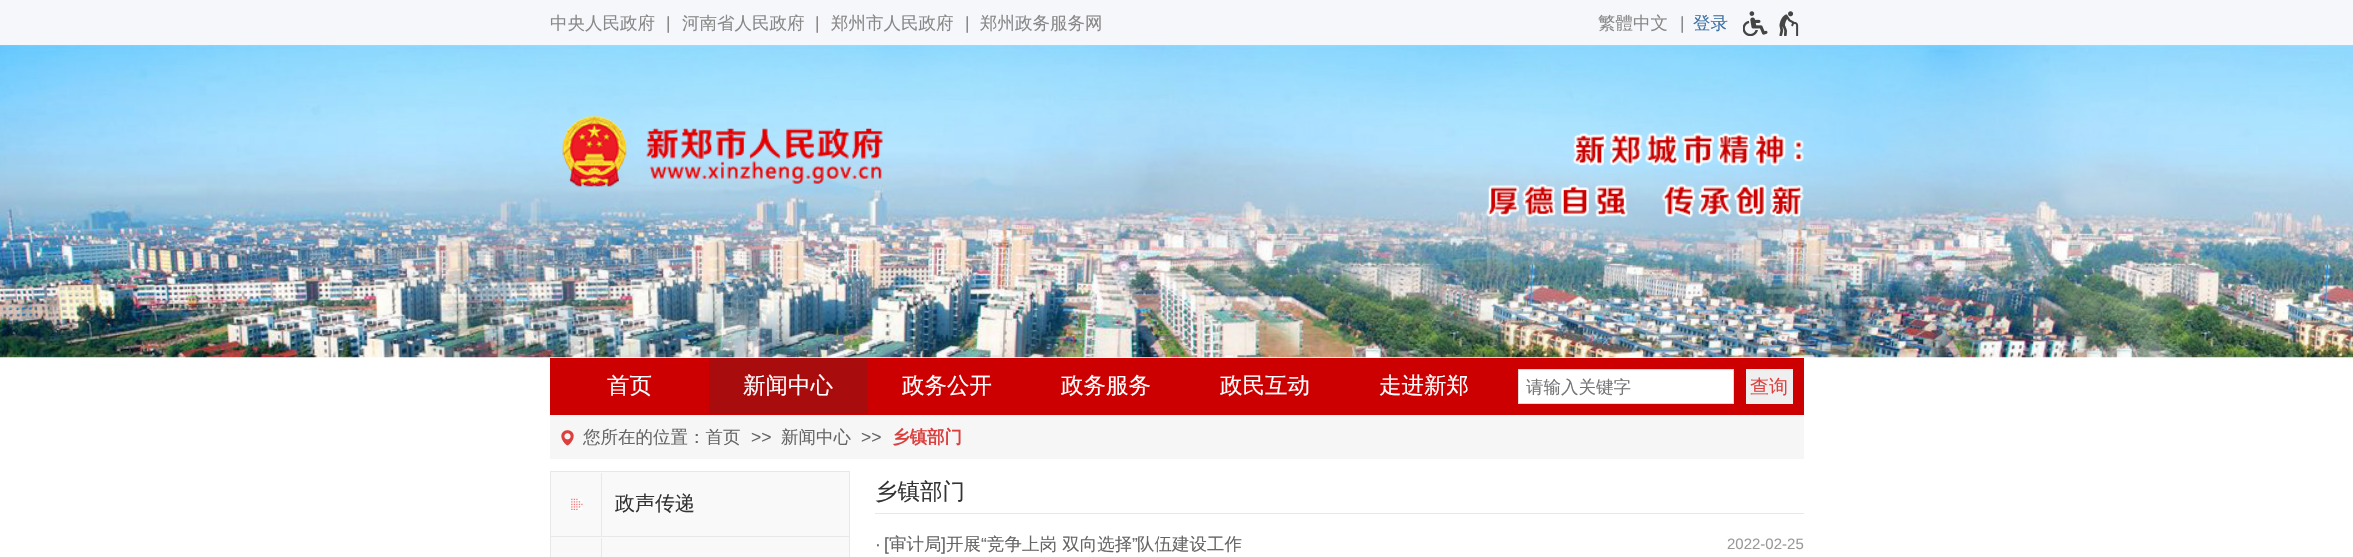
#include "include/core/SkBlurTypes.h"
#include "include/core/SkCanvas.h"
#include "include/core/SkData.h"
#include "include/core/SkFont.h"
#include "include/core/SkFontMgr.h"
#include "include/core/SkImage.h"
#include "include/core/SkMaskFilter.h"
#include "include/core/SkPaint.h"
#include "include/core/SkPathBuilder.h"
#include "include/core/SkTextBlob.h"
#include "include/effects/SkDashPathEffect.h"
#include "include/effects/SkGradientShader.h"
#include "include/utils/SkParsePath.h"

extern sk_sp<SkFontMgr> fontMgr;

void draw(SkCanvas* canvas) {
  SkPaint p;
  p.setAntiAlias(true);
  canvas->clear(SK_ColorWHITE);
  p.setColor(SkColorSetRGB(246, 247, 251));
  canvas->drawRect(SkRect::MakeLTRB(0, 0, 2353, 45), p);
  canvas->drawImageRect(SkImages::DeferredFromEncodedData(SkData::MakeFromFileName("images/1.png")), SkRect::MakeLTRB(1743, 11, 1768, 36), SkSamplingOptions());
  canvas->drawImageRect(SkImages::DeferredFromEncodedData(SkData::MakeFromFileName("images/2.png")), SkRect::MakeLTRB(1779, 11, 1799, 36), SkSamplingOptions());
  canvas->drawImageRect(SkImages::DeferredFromEncodedData(SkData::MakeFromFileName("images/3.png")), SkRect::MakeLTRB(0, 45, 2353, 358), SkSamplingOptions());
  canvas->drawImageRect(SkImages::DeferredFromEncodedData(SkData::MakeFromFileName("images/4.png")), SkRect::MakeLTRB(1572, 132, 1804, 167), SkSamplingOptions());
  canvas->drawImageRect(SkImages::DeferredFromEncodedData(SkData::MakeFromFileName("images/5.png")), SkRect::MakeLTRB(1486, 183, 1804, 218), SkSamplingOptions());
  canvas->drawImageRect(SkImages::DeferredFromEncodedData(SkData::MakeFromFileName("images/6.png")), SkRect::MakeLTRB(562, 116, 883, 187), SkSamplingOptions());
  p.setColor(SkColorSetRGB(204, 0, 0));
  canvas->drawRect(SkRect::MakeLTRB(550, 358, 1804, 415), p);
  p.setColor(SkColorSetRGB(169, 12, 12));
  canvas->drawRect(SkRect::MakeLTRB(709, 358, 868, 414), p);
  p.setColor(SK_ColorWHITE);
  canvas->drawRect(SkRect::MakeLTRB(1518.5f, 369.5f, 1733.5f, 403.5f), p);
  p.setStyle(SkPaint::kStroke_Style);
  p.setStrokeWidth(1);
  p.setColor(SkColorSetRGB(219, 219, 219));
  canvas->drawRect(SkRect::MakeLTRB(1518.5f, 369.5f, 1733.5f, 403.5f), p);
  p.setStyle(SkPaint::kFill_Style);
  p.setColor(SkColorSetRGB(239, 239, 239));
  canvas->drawRect(SkRect::MakeLTRB(1746, 369, 1793, 404), p);
  p.setColor(SkColorSetRGB(246, 246, 246));
  canvas->drawRect(SkRect::MakeLTRB(550, 415, 1804, 459), p);
  canvas->drawImageRect(SkImages::DeferredFromEncodedData(SkData::MakeFromFileName("images/7.png")), SkRect::MakeLTRB(561, 430, 574, 446), SkSamplingOptions());
  p.setColor(SkColorSetRGB(249, 249, 249));
  canvas->drawRect(SkRect::MakeLTRB(550.5f, 471.5f, 849.5f, 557.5f), p);
  p.setStyle(SkPaint::kStroke_Style);
  p.setColor(SkColorSetRGB(232, 232, 232));
  canvas->drawRect(SkRect::MakeLTRB(550.5f, 471.5f, 849.5f, 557.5f), p);
  canvas->drawImageRect(SkImages::DeferredFromEncodedData(SkData::MakeFromFileName("images/8.png")), SkRect::MakeLTRB(571, 498, 583, 510), SkSamplingOptions());
  p.setStyle(SkPaint::kFill_Style);
  canvas->drawRect(SkRect::MakeLTRB(601, 473, 602, 536), p);
  canvas->drawRect(SkRect::MakeLTRB(551, 536, 849, 537), p);
  canvas->drawRect(SkRect::MakeLTRB(601, 538, 602, 557), p);
  canvas->drawRect(SkRect::MakeLTRB(875, 513, 1804, 514), p);
  SkFont font1(fontMgr->matchFamilyStyle("WenQuanYi Zen Hei", SkFontStyle(500, SkFontStyle::kNormal_Width, SkFontStyle::kUpright_Slant)), 17.5f);
  font1.setSubpixel(true);
  p.setColor(SkColorSetRGB(136, 136, 136));
  canvas->drawString("中央人民政府", 550, 29, font1, p);
  SkFont font2(fontMgr->matchFamilyStyle("Liberation Sans", SkFontStyle::Normal()), 17.5f);
  font2.setSubpixel(true);
  canvas->drawString("|", 666, 29, font2, p);
  canvas->drawString("河南省人民政府", 682, 29, font1, p);
  canvas->drawString("|", 815, 29, font2, p);
  canvas->drawString("郑州市人民政府", 831, 29, font1, p);
  canvas->drawString("|", 965, 29, font2, p);
  canvas->drawString("郑州政务服务网", 980, 29, font1, p);
  canvas->drawString("繁體中文", 1598, 29, font1, p);
  canvas->drawString("|", 1680, 29, font2, p);
  p.setColor(SkColorSetRGB(62, 113, 164));
  canvas->drawString("登录", 1693, 29, font1, p);
  SkFont font3(fontMgr->matchFamilyStyle("WenQuanYi Zen Hei", SkFontStyle(500, SkFontStyle::kNormal_Width, SkFontStyle::kUpright_Slant)), 22.5f);
  font3.setSubpixel(true);
  p.setColor(SK_ColorWHITE);
  canvas->drawString("首页", 607, 393, font3, p);
  canvas->drawString("新闻中心", 743, 393, font3, p);
  canvas->drawString("政务公开", 902, 393, font3, p);
  canvas->drawString("政务服务", 1061, 393, font3, p);
  canvas->drawString("政民互动", 1220, 393, font3, p);
  canvas->drawString("走进新郑", 1379, 393, font3, p);
  p.setColor(SkColorSetRGB(117, 117, 117));
  canvas->drawString("请输入关键字", 1526, 393, font1, p);
  SkFont font4(fontMgr->matchFamilyStyle("WenQuanYi Zen Hei", SkFontStyle(500, SkFontStyle::kNormal_Width, SkFontStyle::kUpright_Slant)), 19);
  font4.setSubpixel(true);
  p.setColor(SkColorSetRGB(219, 64, 62));
  canvas->drawString("查询", 1750, 393, font4, p);
  p.setColor(SkColorSetRGB(101, 101, 101));
  canvas->drawString("您所在的位置：首页", 583, 443, font1, p);
  canvas->drawString(">>", 751, 443, font2, p);
  canvas->drawString("新闻中心", 781, 443, font1, p);
  canvas->drawString(">>", 861, 443, font2, p);
  SkFont font5(fontMgr->matchFamilyStyle("WenQuanYi Zen Hei", SkFontStyle::Bold()), 17.5f);
  font5.setSubpixel(true);
  p.setColor(SkColorSetRGB(219, 64, 62));
  canvas->drawString("乡镇部门", 892, 443, font5, p);
  SkFont font6(fontMgr->matchFamilyStyle("WenQuanYi Zen Hei", SkFontStyle(500, SkFontStyle::kNormal_Width, SkFontStyle::kUpright_Slant)), 20);
  font6.setSubpixel(true);
  p.setColor(SkColorSetRGB(51, 51, 51));
  canvas->drawString("政声传递", 615, 510, font6, p);
  canvas->drawString("乡镇部门", 875, 499, font3, p);
  p.setColor(SkColorSetRGB(101, 101, 101));
  canvas->drawString("[", 884, 550, font2, p);
  canvas->drawString("审计局", 889, 550, font1, p);
  canvas->drawString("]", 941, 550, font2, p);
  canvas->drawString("开展", 946, 550, font1, p);
  canvas->drawString("“", 981, 550, font2, p);
  canvas->drawString("竞争上岗 双向选择", 987, 550, font1, p);
  canvas->drawString("”", 1132, 550, font2, p);
  canvas->drawString("队伍建设工作", 1137, 550, font1, p);
  canvas->drawString("·", 875, 550, font2, p);
  SkFont font7(fontMgr->matchFamilyStyle("Liberation Sans", SkFontStyle::Normal()), 15);
  font7.setSubpixel(true);
  p.setColor(SkColorSetRGB(153, 153, 153));
  canvas->drawString("2022-02-25", 1727, 549, font7, p);
}
